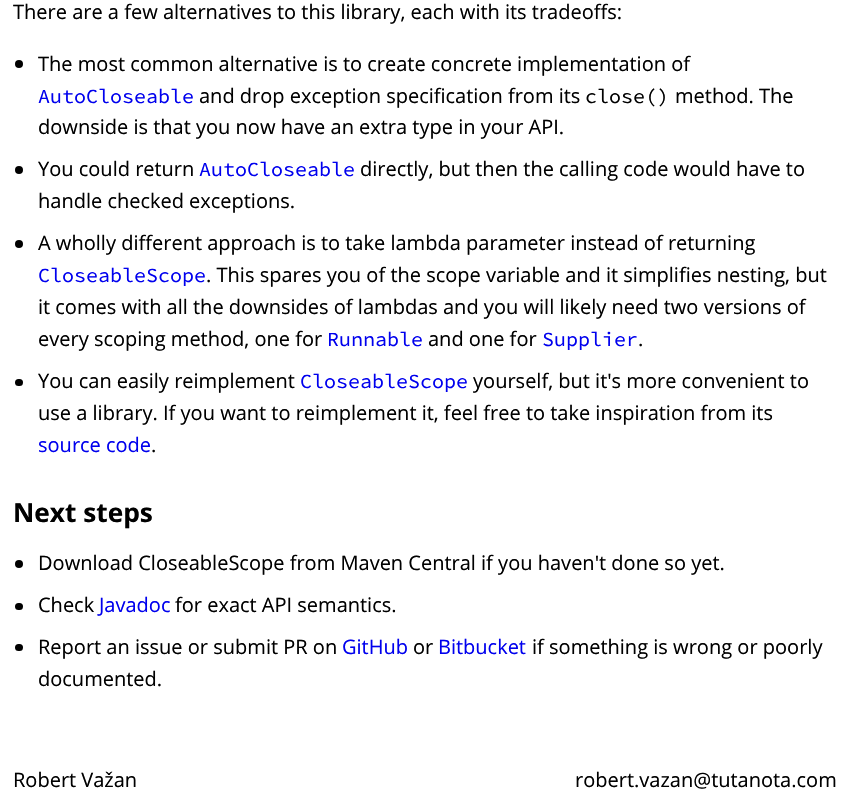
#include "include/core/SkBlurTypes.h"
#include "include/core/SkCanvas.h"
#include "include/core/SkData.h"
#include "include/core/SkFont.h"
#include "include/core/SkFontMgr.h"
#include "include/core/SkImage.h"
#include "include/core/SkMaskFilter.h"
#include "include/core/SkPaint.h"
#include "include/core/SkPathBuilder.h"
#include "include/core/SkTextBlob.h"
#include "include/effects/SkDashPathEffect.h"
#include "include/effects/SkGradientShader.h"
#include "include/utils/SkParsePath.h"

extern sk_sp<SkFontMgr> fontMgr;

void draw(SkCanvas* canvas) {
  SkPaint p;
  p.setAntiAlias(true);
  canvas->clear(SK_ColorWHITE);
  p.setColor(SK_ColorBLACK);
  canvas->drawCircle(19, 64, 4, p);
  canvas->drawCircle(19, 170, 4, p);
  canvas->drawCircle(19, 244, 4, p);
  canvas->drawRoundRect(SkRect::MakeLTRB(15, 379, 23, 386), 3.5f, 3.5f, p);
  canvas->drawCircle(19, 564, 4, p);
  canvas->drawRoundRect(SkRect::MakeLTRB(15, 603, 23, 610), 3.5f, 3.5f, p);
  canvas->drawRoundRect(SkRect::MakeLTRB(15, 644, 23, 651), 3.5f, 3.5f, p);
  SkFont font1(fontMgr->matchFamilyStyle("Open Sans", SkFontStyle::Normal()), 20);
  font1.setSubpixel(true);
  canvas->drawString("There are a few alternatives to this library, each with its tradeoffs:", 13, 19, font1, p);
  canvas->drawString("The most common alternative is to create concrete implementation of", 38, 71, font1, p);
  SkFont font2(fontMgr->matchFamilyStyle("Source Code Pro", SkFontStyle::Normal()), 20);
  font2.setSubpixel(true);
  p.setColor(SkColorSetRGB(0, 0, 238));
  canvas->drawString("AutoCloseable", 38, 103, font2, p);
  p.setColor(SK_ColorBLACK);
  canvas->drawString("and drop exception specification from its", 199, 103, font1, p);
  canvas->drawString("close()", 585, 103, font2, p);
  canvas->drawString("method. The", 675, 103, font1, p);
  canvas->drawString("downside is that you now have an extra type in your API.", 38, 134, font1, p);
  canvas->drawString("You could return", 38, 176, font1, p);
  p.setColor(SkColorSetRGB(0, 0, 238));
  canvas->drawString("AutoCloseable", 199, 176, font2, p);
  p.setColor(SK_ColorBLACK);
  canvas->drawString("directly, but then the calling code would have to", 360, 176, font1, p);
  canvas->drawString("handle checked exceptions.", 38, 208, font1, p);
  canvas->drawString("A wholly different approach is to take lambda parameter instead of returning", 38, 250, font1, p);
  p.setColor(SkColorSetRGB(0, 0, 238));
  canvas->drawString("CloseableScope", 38, 282, font2, p);
  p.setColor(SK_ColorBLACK);
  canvas->drawString(". This spares you of the scope variable and it simplifies nesting, but", 206, 282, font1, p);
  canvas->drawString("it comes with all the downsides of lambdas and you will likely need two versions of", 38, 314, font1, p);
  canvas->drawString("every scoping method, one for", 38, 346, font1, p);
  p.setColor(SkColorSetRGB(0, 0, 238));
  canvas->drawString("Runnable", 327, 346, font2, p);
  p.setColor(SK_ColorBLACK);
  canvas->drawString("and one for", 428, 346, font1, p);
  p.setColor(SkColorSetRGB(0, 0, 238));
  canvas->drawString("Supplier", 542, 346, font2, p);
  p.setColor(SK_ColorBLACK);
  canvas->drawString(".", 638, 346, font1, p);
  canvas->drawString("You can easily reimplement", 38, 388, font1, p);
  p.setColor(SkColorSetRGB(0, 0, 238));
  canvas->drawString("CloseableScope", 300, 388, font2, p);
  p.setColor(SK_ColorBLACK);
  canvas->drawString("yourself, but it's more convenient to", 473, 388, font1, p);
  canvas->drawString("use a library. If you want to reimplement it, feel free to take inspiration from its", 38, 420, font1, p);
  p.setColor(SkColorSetRGB(0, 0, 238));
  canvas->drawString("source code", 38, 452, font1, p);
  p.setColor(SK_ColorBLACK);
  canvas->drawString(".", 151, 452, font1, p);
  SkFont font3(fontMgr->matchFamilyStyle("Open Sans", SkFontStyle::Bold()), 26.25f);
  font3.setSubpixel(true);
  canvas->drawString("Next steps", 13, 522, font3, p);
  canvas->drawString("Download CloseableScope from Maven Central if you haven't done so yet.", 38, 570, font1, p);
  canvas->drawString("Check", 38, 612, font1, p);
  p.setColor(SkColorSetRGB(0, 0, 238));
  canvas->drawString("Javadoc", 99, 612, font1, p);
  p.setColor(SK_ColorBLACK);
  canvas->drawString("for exact API semantics.", 175, 612, font1, p);
  canvas->drawString("Report an issue or submit PR on", 38, 654, font1, p);
  p.setColor(SkColorSetRGB(0, 0, 238));
  canvas->drawString("GitHub", 342, 654, font1, p);
  p.setColor(SK_ColorBLACK);
  canvas->drawString("or", 413, 654, font1, p);
  p.setColor(SkColorSetRGB(0, 0, 238));
  canvas->drawString("Bitbucket", 438, 654, font1, p);
  p.setColor(SK_ColorBLACK);
  canvas->drawString("if something is wrong or poorly", 532, 654, font1, p);
  canvas->drawString("documented.", 38, 686, font1, p);
  canvas->drawString("Robert Važan", 13, 787, font1, p);
  canvas->drawString("robert.vazan@tutanota.com", 575, 787, font1, p);
}
